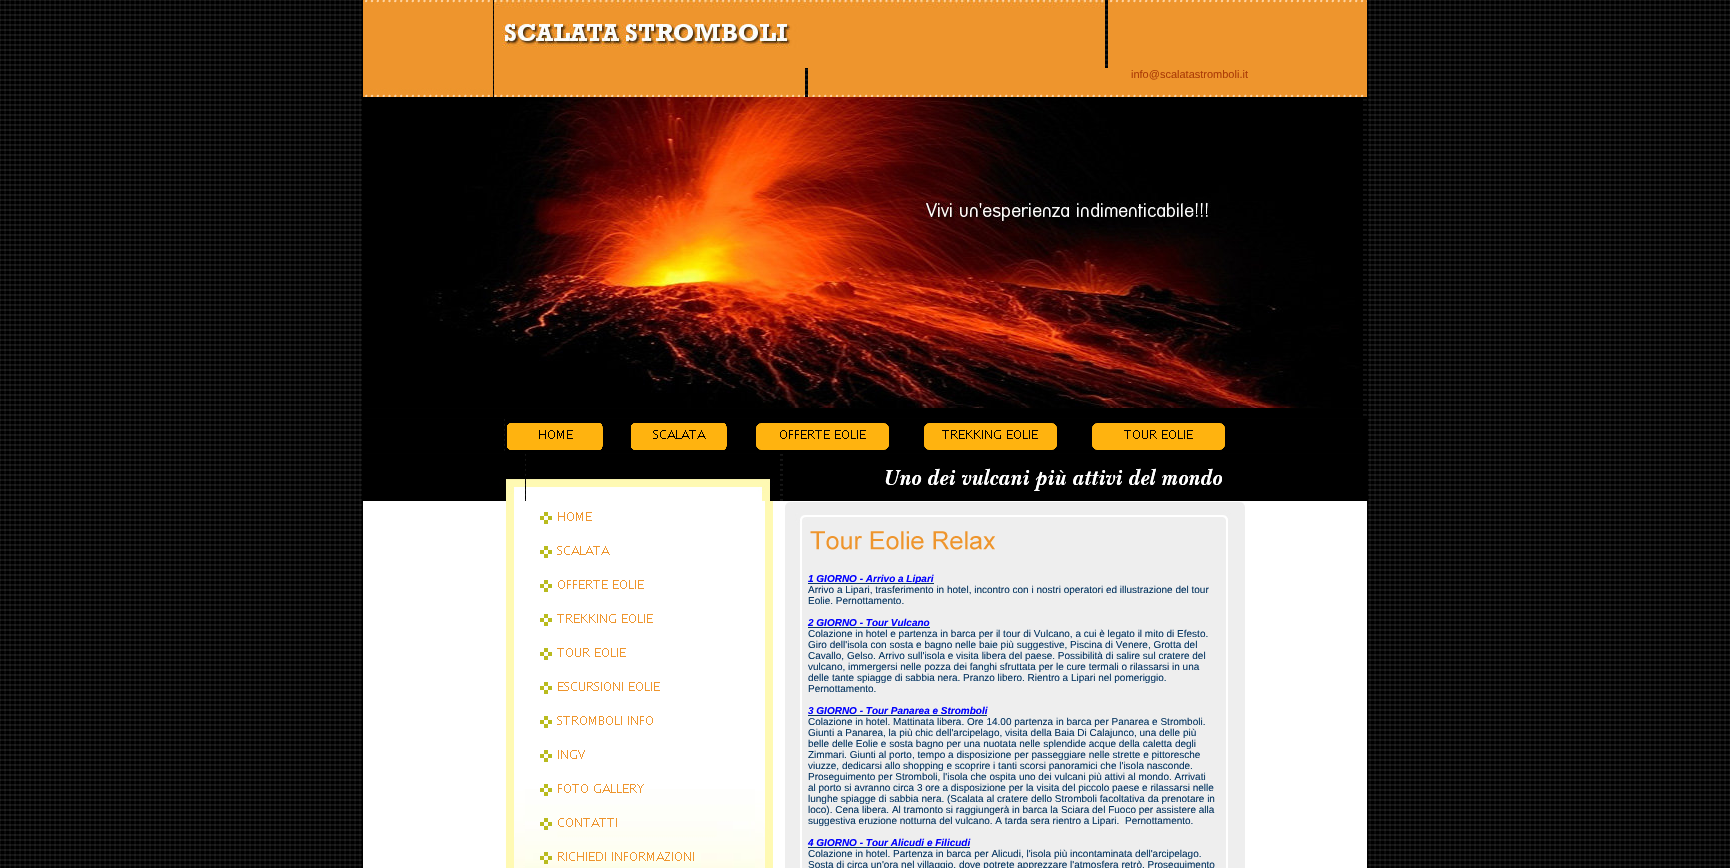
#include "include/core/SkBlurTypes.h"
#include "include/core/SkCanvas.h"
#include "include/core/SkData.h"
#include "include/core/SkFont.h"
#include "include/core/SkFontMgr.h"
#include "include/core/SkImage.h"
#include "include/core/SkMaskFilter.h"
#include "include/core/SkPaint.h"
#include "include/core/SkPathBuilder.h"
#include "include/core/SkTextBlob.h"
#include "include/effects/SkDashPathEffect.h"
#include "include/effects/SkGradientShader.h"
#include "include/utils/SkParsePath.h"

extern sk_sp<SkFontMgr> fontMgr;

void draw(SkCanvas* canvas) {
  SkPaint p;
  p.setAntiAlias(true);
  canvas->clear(SK_ColorWHITE);
  canvas->drawImageRect(SkImages::DeferredFromEncodedData(SkData::MakeFromFileName("images/1.png")), SkRect::MakeLTRB(0, 0, 1730, 868), SkSamplingOptions());
  canvas->drawImageRect(SkImages::DeferredFromEncodedData(SkData::MakeFromFileName("images/2.png")), SkRect::MakeLTRB(364, 0, 1366, 501), SkSamplingOptions());
  p.setColor(SK_ColorBLACK);
  canvas->drawRect(SkRect::MakeLTRB(1367, 0, 1368, 868), p);
  canvas->drawRect(SkRect::MakeLTRB(362, 0, 363, 868), p);
  canvas->drawImageRect(SkImages::DeferredFromEncodedData(SkData::MakeFromFileName("images/3.png")), SkRect::MakeLTRB(363, 0, 493, 97), SkSamplingOptions());
  canvas->drawImageRect(SkImages::DeferredFromEncodedData(SkData::MakeFromFileName("images/4.png")), SkRect::MakeLTRB(494, 0, 1105, 68), SkSamplingOptions());
  canvas->drawImageRect(SkImages::DeferredFromEncodedData(SkData::MakeFromFileName("images/5.png")), SkRect::MakeLTRB(1108, 0, 1367, 68), SkSamplingOptions());
  canvas->drawImageRect(SkImages::DeferredFromEncodedData(SkData::MakeFromFileName("images/6.png")), SkRect::MakeLTRB(494, 68, 805, 97), SkSamplingOptions());
  canvas->drawImageRect(SkImages::DeferredFromEncodedData(SkData::MakeFromFileName("images/7.png")), SkRect::MakeLTRB(808, 68, 1248, 97), SkSamplingOptions());
  canvas->drawImageRect(SkImages::DeferredFromEncodedData(SkData::MakeFromFileName("images/8.png")), SkRect::MakeLTRB(1248, 68, 1367, 97), SkSamplingOptions());
  canvas->drawImageRect(SkImages::DeferredFromEncodedData(SkData::MakeFromFileName("images/9.png")), SkRect::MakeLTRB(363, 97, 1363, 408), SkSamplingOptions());
  canvas->drawRect(SkRect::MakeLTRB(363, 409, 1363, 416), p);
  canvas->drawRect(SkRect::MakeLTRB(363, 419, 504, 451), p);
  canvas->drawRect(SkRect::MakeLTRB(505, 419, 1367, 451), p);
  canvas->drawImageRect(SkImages::DeferredFromEncodedData(SkData::MakeFromFileName("images/10.png")), SkRect::MakeLTRB(507, 423, 603, 450), SkSamplingOptions());
  canvas->drawImageRect(SkImages::DeferredFromEncodedData(SkData::MakeFromFileName("images/11.png")), SkRect::MakeLTRB(631, 423, 727, 450), SkSamplingOptions());
  canvas->drawImageRect(SkImages::DeferredFromEncodedData(SkData::MakeFromFileName("images/12.png")), SkRect::MakeLTRB(756, 423, 889, 450), SkSamplingOptions());
  canvas->drawImageRect(SkImages::DeferredFromEncodedData(SkData::MakeFromFileName("images/13.png")), SkRect::MakeLTRB(924, 423, 1057, 450), SkSamplingOptions());
  canvas->drawImageRect(SkImages::DeferredFromEncodedData(SkData::MakeFromFileName("images/14.png")), SkRect::MakeLTRB(1092, 423, 1225, 450), SkSamplingOptions());
  canvas->drawImageRect(SkImages::DeferredFromEncodedData(SkData::MakeFromFileName("images/15.png")), SkRect::MakeLTRB(363, 454, 525, 501), SkSamplingOptions());
  canvas->drawImageRect(SkImages::DeferredFromEncodedData(SkData::MakeFromFileName("images/16.png")), SkRect::MakeLTRB(526, 454, 780, 501), SkSamplingOptions());
  canvas->drawImageRect(SkImages::DeferredFromEncodedData(SkData::MakeFromFileName("images/17.png")), SkRect::MakeLTRB(783, 454, 1233, 501), SkSamplingOptions());
  canvas->drawRect(SkRect::MakeLTRB(1233, 454, 1367, 501), p);
  canvas->drawImageRect(SkImages::DeferredFromEncodedData(SkData::MakeFromFileName("images/18.png")), SkRect::MakeLTRB(363, 501, 514, 868), SkSamplingOptions());
  canvas->drawImageRect(SkImages::DeferredFromEncodedData(SkData::MakeFromFileName("images/19.png")), SkRect::MakeLTRB(514, 501, 525, 868), SkSamplingOptions());
  canvas->drawImageRect(SkImages::DeferredFromEncodedData(SkData::MakeFromFileName("images/20.png")), SkRect::MakeLTRB(525, 501, 755, 868), SkSamplingOptions());
  canvas->drawImageRect(SkImages::DeferredFromEncodedData(SkData::MakeFromFileName("images/21.png")), SkRect::MakeLTRB(540, 512, 592, 524), SkSamplingOptions());
  canvas->drawImageRect(SkImages::DeferredFromEncodedData(SkData::MakeFromFileName("images/22.png")), SkRect::MakeLTRB(540, 546, 610, 558), SkSamplingOptions());
  canvas->drawImageRect(SkImages::DeferredFromEncodedData(SkData::MakeFromFileName("images/23.png")), SkRect::MakeLTRB(540, 580, 644, 592), SkSamplingOptions());
  canvas->drawImageRect(SkImages::DeferredFromEncodedData(SkData::MakeFromFileName("images/24.png")), SkRect::MakeLTRB(540, 614, 653, 626), SkSamplingOptions());
  canvas->drawImageRect(SkImages::DeferredFromEncodedData(SkData::MakeFromFileName("images/25.png")), SkRect::MakeLTRB(540, 648, 626, 660), SkSamplingOptions());
  canvas->drawImageRect(SkImages::DeferredFromEncodedData(SkData::MakeFromFileName("images/26.png")), SkRect::MakeLTRB(540, 682, 660, 694), SkSamplingOptions());
  canvas->drawImageRect(SkImages::DeferredFromEncodedData(SkData::MakeFromFileName("images/27.png")), SkRect::MakeLTRB(540, 716, 653, 728), SkSamplingOptions());
  canvas->drawImageRect(SkImages::DeferredFromEncodedData(SkData::MakeFromFileName("images/28.png")), SkRect::MakeLTRB(540, 750, 585, 762), SkSamplingOptions());
  canvas->drawImageRect(SkImages::DeferredFromEncodedData(SkData::MakeFromFileName("images/29.png")), SkRect::MakeLTRB(540, 784, 644, 796), SkSamplingOptions());
  canvas->drawImageRect(SkImages::DeferredFromEncodedData(SkData::MakeFromFileName("images/30.png")), SkRect::MakeLTRB(540, 818, 617, 830), SkSamplingOptions());
  canvas->drawImageRect(SkImages::DeferredFromEncodedData(SkData::MakeFromFileName("images/31.png")), SkRect::MakeLTRB(540, 852, 694, 864), SkSamplingOptions());
  canvas->drawImageRect(SkImages::DeferredFromEncodedData(SkData::MakeFromFileName("images/32.png")), SkRect::MakeLTRB(755, 501, 808, 868), SkSamplingOptions());
  canvas->drawImageRect(SkImages::DeferredFromEncodedData(SkData::MakeFromFileName("images/33.png")), SkRect::MakeLTRB(808, 501, 1367, 868), SkSamplingOptions());
  canvas->drawImageRect(SkImages::DeferredFromEncodedData(SkData::MakeFromFileName("images/34.png")), SkRect::MakeLTRB(808, 501, 1215, 517), SkSamplingOptions());
  canvas->drawImageRect(SkImages::DeferredFromEncodedData(SkData::MakeFromFileName("images/35.png")), SkRect::MakeLTRB(1215, 501, 1245, 520), SkSamplingOptions());
  canvas->drawImageRect(SkImages::DeferredFromEncodedData(SkData::MakeFromFileName("images/36.png")), SkRect::MakeLTRB(810, 531, 995, 550), SkSamplingOptions());
  p.setColor(SkColorSetRGB(7, 55, 99));
  canvas->drawRect(SkRect::MakeLTRB(808, 583, 934, 584), p);
  canvas->drawRect(SkRect::MakeLTRB(808, 627, 930, 628), p);
  canvas->drawRect(SkRect::MakeLTRB(808, 715, 987, 716), p);
  canvas->drawRect(SkRect::MakeLTRB(808, 847, 970, 848), p);
  SkFont font1(fontMgr->matchFamilyStyle("Liberation Sans", SkFontStyle::Normal()), 11);
  font1.setSubpixel(true);
  p.setColor(SkColorSetRGB(172, 60, 6));
  canvas->drawString("info@scalatastromboli.it", 1131, 78, font1, p);
  SkFont font2(fontMgr->matchFamilyStyle("Liberation Sans", SkFontStyle::BoldItalic()), 10);
  font2.setSubpixel(true);
  p.setColor(SkColorSetRGB(0, 0, 255));
  canvas->drawString("1 GIORNO - Arrivo a Lipari", 808, 582, font2, p);
  SkFont font3(fontMgr->matchFamilyStyle("Liberation Sans", SkFontStyle::Normal()), 10);
  font3.setSubpixel(true);
  p.setColor(SkColorSetRGB(7, 55, 99));
  canvas->drawString("Arrivo a Lipari, trasferimento in hotel, incontro con i nostri operatori ed illustrazione del tour", 808, 593, font3, p);
  canvas->drawString("Eolie. Pernottamento.", 808, 604, font3, p);
  p.setColor(SkColorSetRGB(0, 0, 255));
  canvas->drawString("2 GIORNO - Tour Vulcano", 808, 626, font2, p);
  p.setColor(SkColorSetRGB(7, 55, 99));
  canvas->drawString("Colazione in hotel e partenza in barca per il tour di Vulcano, a cui è legato il mito di Efesto.", 808, 637, font3, p);
  canvas->drawString("Giro dell'isola con sosta e bagno nelle baie più suggestive, Piscina di Venere, Grotta del", 808, 648, font3, p);
  canvas->drawString("Cavallo, Gelso. Arrivo sull'isola e visita libera del paese. Possibilità di salire sul cratere del", 808, 659, font3, p);
  canvas->drawString("vulcano, immergersi nelle pozza dei fanghi sfruttata per le cure termali o rilassarsi in una", 808, 670, font3, p);
  canvas->drawString("delle tante spiagge di sabbia nera. Pranzo libero. Rientro a Lipari nel pomeriggio.", 808, 681, font3, p);
  canvas->drawString("Pernottamento.", 808, 692, font3, p);
  p.setColor(SkColorSetRGB(0, 0, 255));
  canvas->drawString("3 GIORNO - Tour Panarea e Stromboli", 808, 714, font2, p);
  p.setColor(SkColorSetRGB(7, 55, 99));
  canvas->drawString("Colazione in hotel. Mattinata libera. Ore 14.00 partenza in barca per Panarea e Stromboli.", 808, 725, font3, p);
  canvas->drawString("Giunti a Panarea, la più chic dell'arcipelago, visita della Baia Di Calajunco, una delle più", 808, 736, font3, p);
  canvas->drawString("belle delle Eolie e sosta bagno per una nuotata nelle splendide acque della caletta degli", 808, 747, font3, p);
  canvas->drawString("Zimmari. Giunti al porto, tempo a disposizione per passeggiare nelle strette e pittoresche", 808, 758, font3, p);
  canvas->drawString("viuzze, dedicarsi allo shopping e scoprire i tanti scorsi panoramici che l'isola nasconde.", 808, 769, font3, p);
  canvas->drawString("Proseguimento per Stromboli, l'isola che ospita uno dei vulcani più attivi al mondo. Arrivati", 808, 780, font3, p);
  canvas->drawString("al porto si avranno circa 3 ore a disposizione per la visita del piccolo paese e rilassarsi nelle", 808, 791, font3, p);
  canvas->drawString("lunghe spiagge di sabbia nera. (Scalata al cratere dello Stromboli facoltativa da prenotare in", 808, 802, font3, p);
  canvas->drawString("loco). Cena libera. Al tramonto si raggiungerà in barca la Sciara del Fuoco per assistere alla", 808, 813, font3, p);
  canvas->drawString("suggestiva eruzione notturna del vulcano. A tarda sera rientro a Lipari.", 808, 824, font3, p);
  canvas->drawString("Pernottamento.", 1125, 824, font3, p);
  p.setColor(SkColorSetRGB(0, 0, 255));
  canvas->drawString("4 GIORNO - Tour Alicudi e Filicudi", 808, 846, font2, p);
  p.setColor(SkColorSetRGB(7, 55, 99));
  canvas->drawString("Colazione in hotel. Partenza in barca per Alicudi, l'isola più incontaminata dell'arcipelago.", 808, 857, font3, p);
  canvas->drawString("Sosta di circa un'ora nel villaggio, dove potrete apprezzare l'atmosfera retrò. Proseguimento", 808, 868, font3, p);
}
